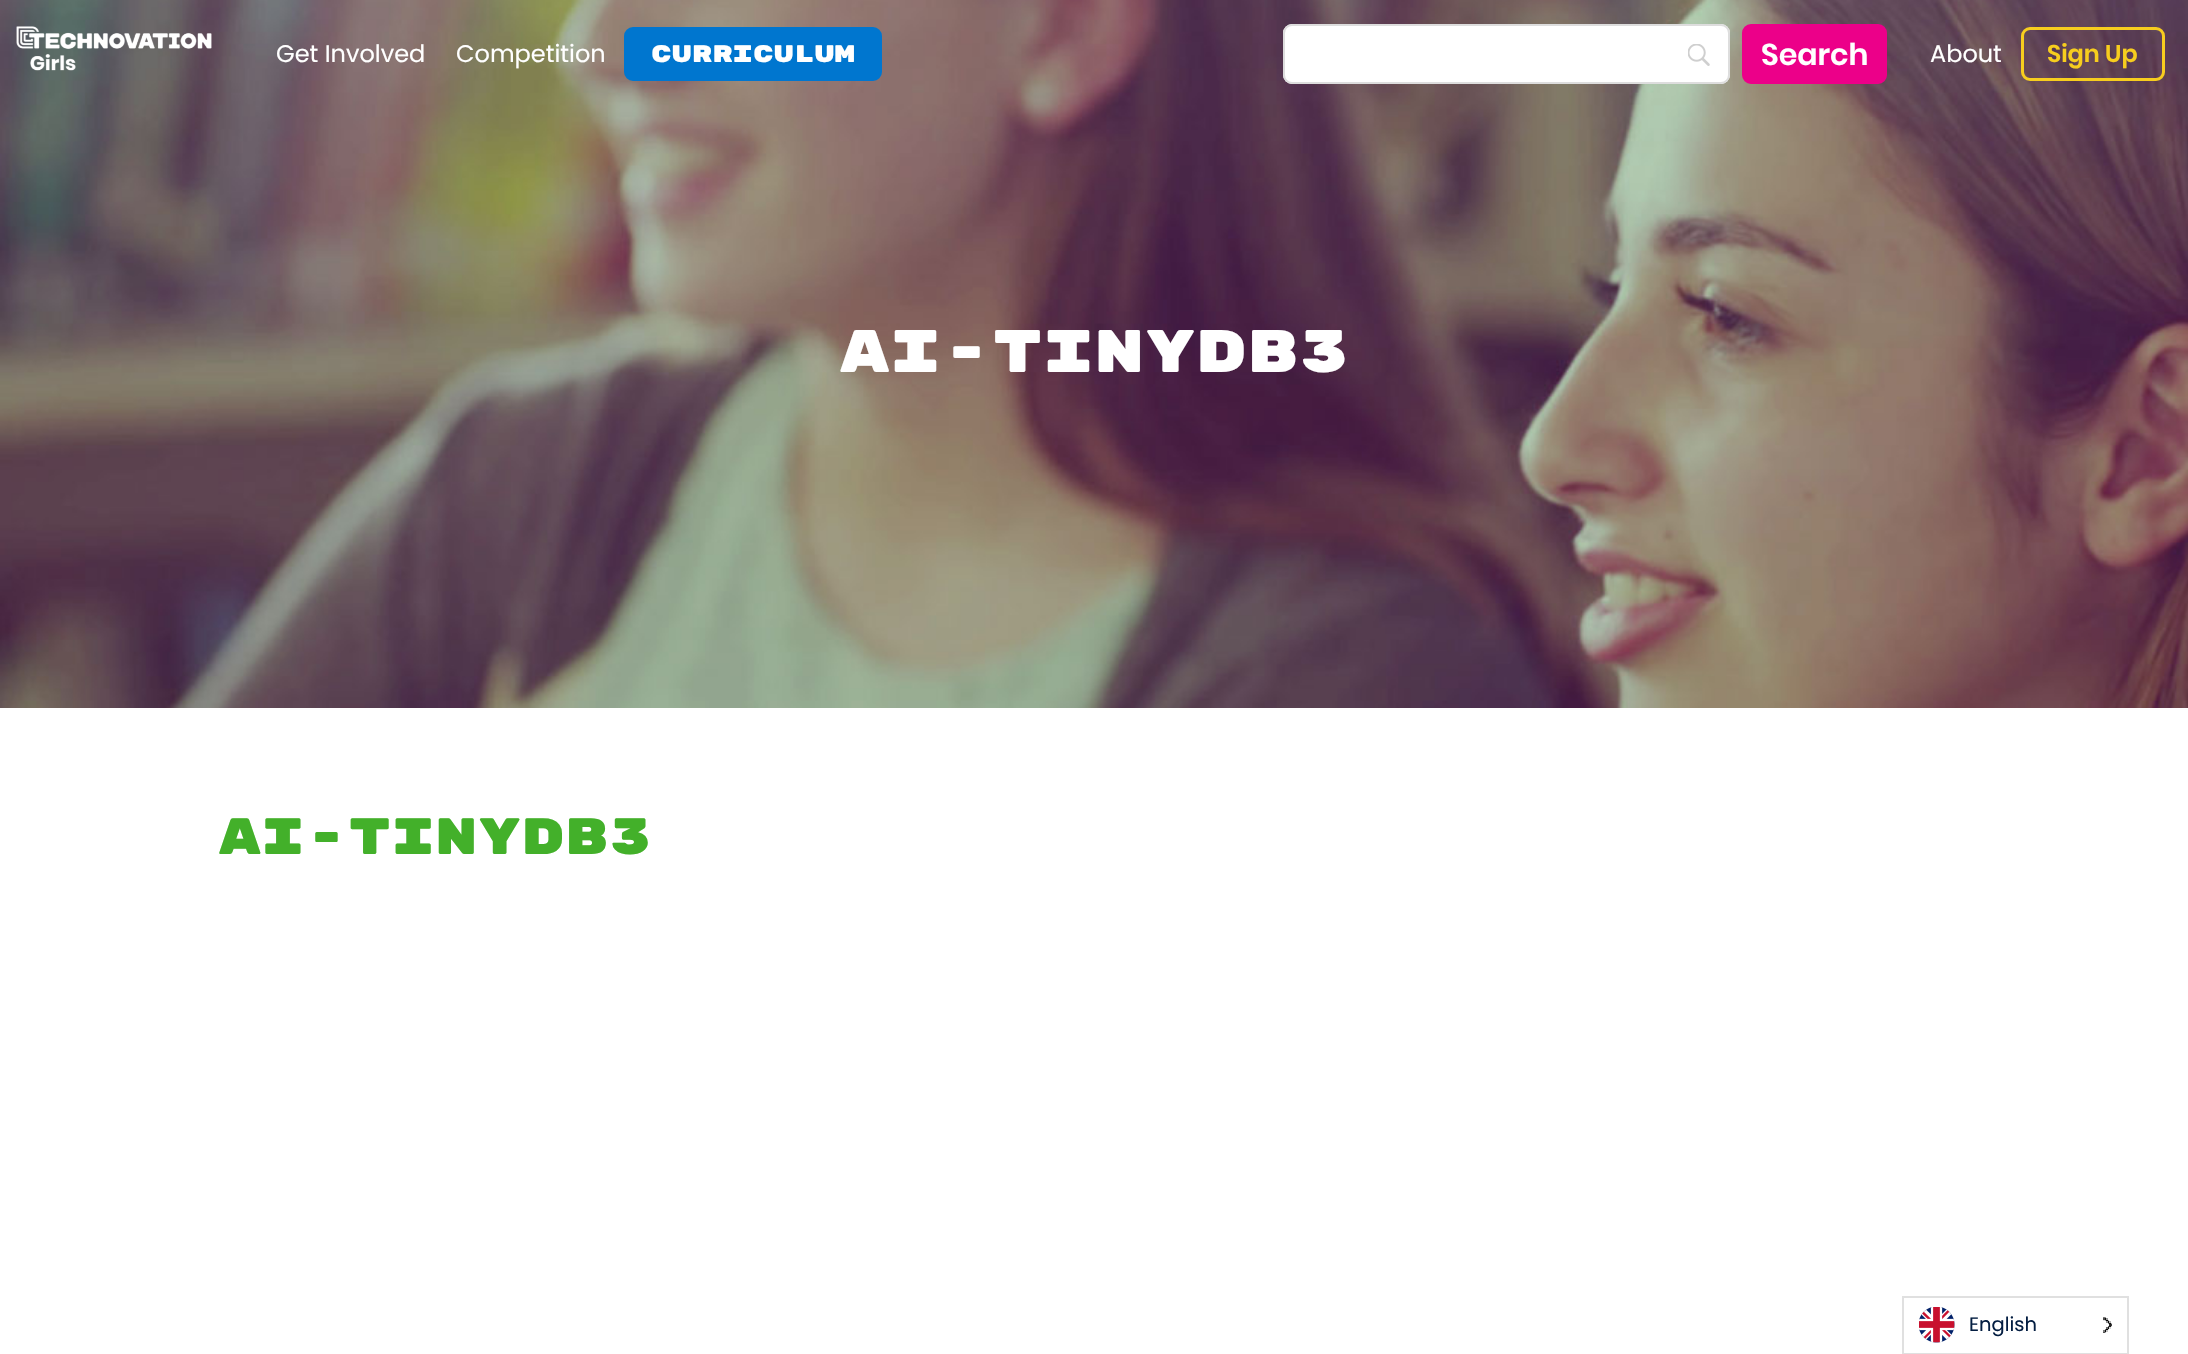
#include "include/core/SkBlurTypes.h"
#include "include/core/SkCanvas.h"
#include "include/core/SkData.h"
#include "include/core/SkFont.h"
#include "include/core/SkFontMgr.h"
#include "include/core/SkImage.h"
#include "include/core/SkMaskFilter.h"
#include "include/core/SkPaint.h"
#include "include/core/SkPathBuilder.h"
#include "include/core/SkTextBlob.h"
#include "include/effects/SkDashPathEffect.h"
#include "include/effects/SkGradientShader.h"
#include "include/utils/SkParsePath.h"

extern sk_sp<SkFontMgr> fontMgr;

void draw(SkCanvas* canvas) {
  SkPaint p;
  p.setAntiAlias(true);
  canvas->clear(SK_ColorWHITE);
  canvas->drawImageRect(SkImages::DeferredFromEncodedData(SkData::MakeFromFileName("images/3.png")), SkRect::MakeLTRB(0, 0, 2188, 708), SkSamplingOptions());
  canvas->drawImageRect(SkImages::DeferredFromEncodedData(SkData::MakeFromFileName("images/1.png")), SkRect::MakeLTRB(16, 26, 212, 71), SkSamplingOptions());
  p.setColor(SkColorSetRGB(0, 118, 207));
  canvas->drawRoundRect(SkRect::MakeLTRB(625.5f, 28.5f, 880.5f, 79.5f), 7.5f, 7.5f, p);
  p.setStyle(SkPaint::kStroke_Style);
  p.setStrokeWidth(3);
  canvas->drawRoundRect(SkRect::MakeLTRB(625.5f, 28.5f, 880.5f, 79.5f), 7.5f, 7.5f, p);
  p.setStyle(SkPaint::kFill_Style);
  p.setColor(SK_ColorWHITE);
  canvas->drawRoundRect(SkRect::MakeLTRB(1283, 24, 1730, 84), 9, 9, p);
  canvas->drawImageRect(SkImages::DeferredFromEncodedData(SkData::MakeFromFileName("images/2.png")), SkRect::MakeLTRB(1688, 44, 1710, 66), SkSamplingOptions());
  p.setStyle(SkPaint::kStroke_Style);
  p.setStrokeWidth(2);
  p.setColor(SkColorSetRGB(221, 221, 221));
  canvas->drawRoundRect(SkRect::MakeLTRB(1284, 25, 1729, 83), 8, 8, p);
  p.setStyle(SkPaint::kFill_Style);
  p.setColor(SkColorSetRGB(236, 0, 137));
  canvas->drawRoundRect(SkRect::MakeLTRB(1743, 25, 1886, 83), 8, 8, p);
  p.setStyle(SkPaint::kStroke_Style);
  canvas->drawRoundRect(SkRect::MakeLTRB(1743, 25, 1886, 83), 8, 8, p);
  p.setStrokeWidth(3);
  p.setColor(SkColorSetRGB(247, 205, 30));
  canvas->drawRoundRect(SkRect::MakeLTRB(2022.5f, 28.5f, 2163.5f, 79.5f), 7.5f, 7.5f, p);
  p.setStrokeWidth(2);
  p.setColor(SkColorSetRGB(224, 224, 224));
  canvas->drawRect(SkRect::MakeLTRB(1903, 1297, 2128, 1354), p);
  canvas->drawImageRect(SkImages::DeferredFromEncodedData(SkData::MakeFromFileName("images/4.png")), SkRect::MakeLTRB(1919, 1307, 1955, 1343), SkSamplingOptions());
  canvas->drawImageRect(SkImages::DeferredFromEncodedData(SkData::MakeFromFileName("images/5.png")), SkRect::MakeLTRB(2103, 1317, 2112, 1333), SkSamplingOptions());
  SkFont font1(fontMgr->matchFamilyStyle("Poppins", SkFontStyle::Normal()), 24);
  font1.setSubpixel(true);
  p.setStyle(SkPaint::kFill_Style);
  p.setColor(SK_ColorWHITE);
  canvas->drawString("Get Involved", 276, 62, font1, p);
  canvas->drawString("Competition", 456, 62, font1, p);
  SkFont font2(fontMgr->matchFamilyStyle("Rubik Mono One", SkFontStyle::Normal()), 24);
  font2.setSubpixel(true);
  canvas->drawString("Curriculum", 651, 62, font2, p);
  SkFont font3(fontMgr->matchFamilyStyle("Poppins", SkFontStyle(600, SkFontStyle::kNormal_Width, SkFontStyle::kUpright_Slant)), 30);
  font3.setSubpixel(true);
  canvas->drawString("Search", 1761, 65, font3, p);
  canvas->drawString("About", 1930, 62, font1, p);
  SkFont font4(fontMgr->matchFamilyStyle("Poppins", SkFontStyle(600, SkFontStyle::kNormal_Width, SkFontStyle::kUpright_Slant)), 24);
  font4.setSubpixel(true);
  p.setColor(SkColorSetRGB(247, 205, 30));
  canvas->drawString("Sign Up", 2047, 62, font4, p);
  SkFont font5(fontMgr->matchFamilyStyle("Rubik Mono One", SkFontStyle::Normal()), 60);
  font5.setSubpixel(true);
  p.setColor(SK_ColorWHITE);
  canvas->drawString("ai-tinydb3", 839, 372, font5, p);
  SkFont font6(fontMgr->matchFamilyStyle("Rubik Mono One", SkFontStyle::Normal()), 51);
  font6.setSubpixel(true);
  p.setColor(SkColorSetRGB(67, 176, 42));
  canvas->drawString("ai-tinydb3", 218, 854, font6, p);
  SkFont font7(fontMgr->matchFamilyStyle("Poppins", SkFontStyle::Normal()), 19.5f);
  font7.setSubpixel(true);
  p.setColor(SkColorSetRGB(4, 30, 66));
  canvas->drawString("English", 1969, 1331, font7, p);
}
